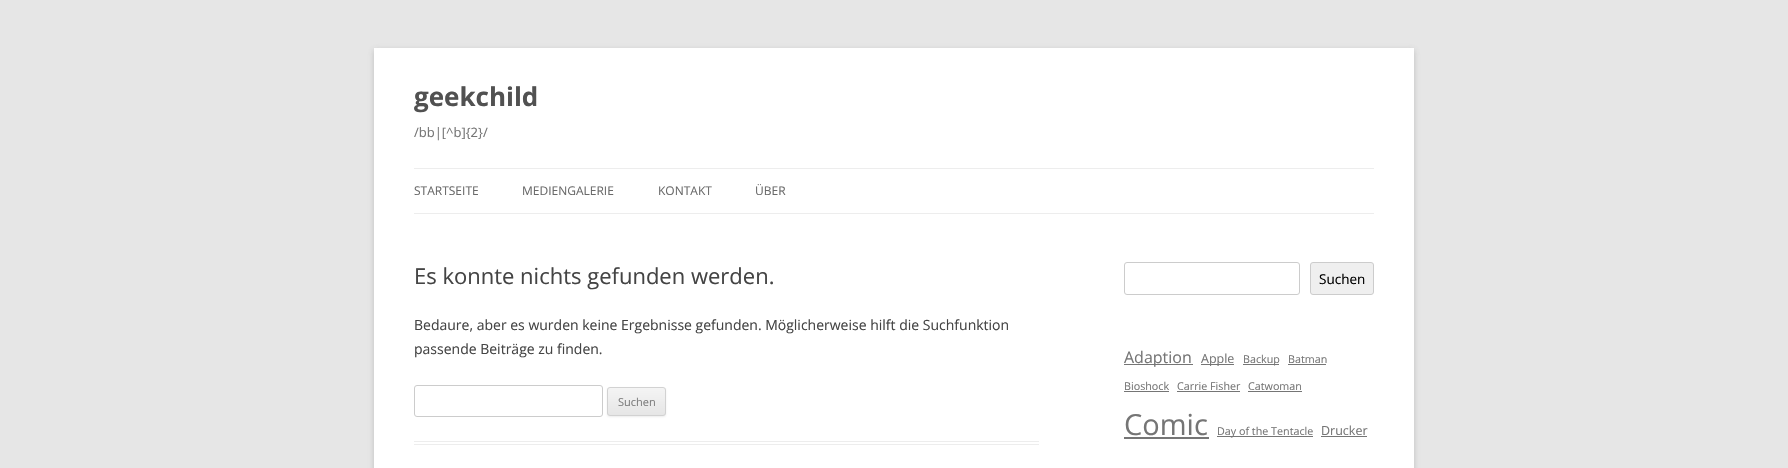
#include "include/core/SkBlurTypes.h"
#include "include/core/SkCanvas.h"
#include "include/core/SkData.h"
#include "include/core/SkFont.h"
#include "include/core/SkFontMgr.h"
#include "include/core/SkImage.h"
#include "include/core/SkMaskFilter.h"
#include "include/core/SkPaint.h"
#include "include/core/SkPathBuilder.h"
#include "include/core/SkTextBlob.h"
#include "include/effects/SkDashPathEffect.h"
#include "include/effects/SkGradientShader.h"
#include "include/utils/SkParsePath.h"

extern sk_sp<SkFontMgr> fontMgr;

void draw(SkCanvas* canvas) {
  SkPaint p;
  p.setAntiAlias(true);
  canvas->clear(SkColorSetRGB(230, 230, 230));
  p.setColor(SkColorSetARGB(77, 100, 100, 100));
  p.setMaskFilter(SkMaskFilter::MakeBlur(kNormal_SkBlurStyle, 3));
  canvas->drawRect(SkRect::MakeLTRB(374, 50, 1414, 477), p);
  p.setMaskFilter(nullptr);
  p.setColor(SK_ColorWHITE);
  canvas->drawRect(SkRect::MakeLTRB(374, 48, 1414, 468), p);
  p.setColor(SkColorSetRGB(237, 237, 237));
  canvas->drawRect(SkRect::MakeLTRB(414, 168, 1374, 169), p);
  canvas->drawRect(SkRect::MakeLTRB(414, 213, 1374, 214), p);
  canvas->drawRect(SkRect::MakeLTRB(414, 441, 1039, 442), p);
  canvas->drawRect(SkRect::MakeLTRB(414, 444, 1039, 445), p);
  p.setStyle(SkPaint::kStroke_Style);
  p.setStrokeWidth(1);
  p.setColor(SkColorSetRGB(204, 204, 204));
  canvas->drawRoundRect(SkRect::MakeLTRB(414.5f, 385.5f, 602.5f, 416.5f), 2.5f, 2.5f, p);
  p.setStyle(SkPaint::kFill_Style);
  p.setColor(SkColorSetARGB(26, 64, 64, 64));
  p.setMaskFilter(SkMaskFilter::MakeBlur(kNormal_SkBlurStyle, 1));
  canvas->drawRoundRect(SkRect::MakeLTRB(607, 388, 666, 417), 3, 3, p);
  p.setMaskFilter(nullptr);
  canvas->save();
  canvas->clipPath(SkPathBuilder().moveTo(610, 387).lineTo(663, 387).cubicTo(664.5f, 387, 666, 388.5f, 666, 390).lineTo(666, 413).cubicTo(666, 414.5f, 664.5f, 416, 663, 416).lineTo(610, 416).cubicTo(608.5f, 416, 607, 414.5f, 607, 413).lineTo(607, 390).cubicTo(607, 388.5f, 608.5f, 387, 610, 387).close().detach(), true);
  {
    const SkColor colors[] = {SkColorSetRGB(244, 244, 244), SkColorSetRGB(230, 230, 230)};
    const float stops[] = {0, 1};
    const SkPoint ends[] = {{637, 388}, {637, 415}};
    p.setShader(SkGradientShader::MakeLinear(ends, colors, stops, 2, SkTileMode::kClamp));
    p.setAlpha(255);
  }
  canvas->drawRect(SkRect::MakeLTRB(607, 388, 666, 415), p);
  canvas->restore();
  p.setStyle(SkPaint::kStroke_Style);
  p.setShader(nullptr);
  p.setColor(SkColorSetRGB(210, 210, 210));
  canvas->drawRoundRect(SkRect::MakeLTRB(607.5f, 387.5f, 665.5f, 415.5f), 2.5f, 2.5f, p);
  p.setColor(SkColorSetRGB(204, 204, 204));
  canvas->drawRoundRect(SkRect::MakeLTRB(1124.5f, 262.5f, 1299.5f, 294.5f), 2.5f, 2.5f, p);
  p.setStyle(SkPaint::kFill_Style);
  p.setColor(SkColorSetRGB(239, 239, 239));
  canvas->drawRoundRect(SkRect::MakeLTRB(1310.5f, 262.5f, 1373.5f, 294.5f), 2.5f, 2.5f, p);
  p.setStyle(SkPaint::kStroke_Style);
  p.setColor(SkColorSetRGB(204, 204, 204));
  canvas->drawRoundRect(SkRect::MakeLTRB(1310.5f, 262.5f, 1373.5f, 294.5f), 2.5f, 2.5f, p);
  p.setStyle(SkPaint::kFill_Style);
  p.setColor(SkColorSetRGB(117, 117, 117));
  canvas->drawRect(SkRect::MakeLTRB(1124, 364, 1193, 365), p);
  canvas->drawRect(SkRect::MakeLTRB(1201, 364, 1234, 365), p);
  canvas->drawRect(SkRect::MakeLTRB(1243, 364, 1279, 365), p);
  canvas->drawRect(SkRect::MakeLTRB(1288, 364, 1326, 365), p);
  canvas->drawRect(SkRect::MakeLTRB(1124, 391, 1169, 392), p);
  canvas->drawRect(SkRect::MakeLTRB(1177, 391, 1240, 392), p);
  canvas->drawRect(SkRect::MakeLTRB(1248, 391, 1302, 392), p);
  canvas->drawRect(SkRect::MakeLTRB(1124, 437, 1209, 439), p);
  canvas->drawRect(SkRect::MakeLTRB(1217, 436, 1313, 437), p);
  canvas->drawRect(SkRect::MakeLTRB(1321, 436, 1367, 437), p);
  SkFont font1(fontMgr->matchFamilyStyle("Open Sans", SkFontStyle::Bold()), 26);
  font1.setSubpixel(true);
  p.setColor(SkColorSetRGB(81, 81, 81));
  canvas->drawString("geekchild", 414, 106, font1, p);
  SkFont font2(fontMgr->matchFamilyStyle("Open Sans", SkFontStyle::Normal()), 13);
  font2.setSubpixel(true);
  p.setColor(SkColorSetRGB(117, 117, 117));
  canvas->drawString("/bb|[^b]{2}/", 414, 137, font2, p);
  SkFont font3(fontMgr->matchFamilyStyle("Open Sans", SkFontStyle::Normal()), 12);
  font3.setSubpixel(true);
  p.setColor(SkColorSetRGB(106, 106, 106));
  canvas->drawString("STARTSEITE", 414, 195, font3, p);
  canvas->drawString("MEDIENGALERIE", 522, 195, font3, p);
  canvas->drawString("KONTAKT", 658, 195, font3, p);
  canvas->drawString("ÜBER", 755, 195, font3, p);
  SkFont font4(fontMgr->matchFamilyStyle("Open Sans", SkFontStyle::Normal()), 22);
  font4.setSubpixel(true);
  p.setColor(SkColorSetRGB(68, 68, 68));
  canvas->drawString("Es konnte nichts gefunden werden.", 414, 284, font4, p);
  SkFont font5(fontMgr->matchFamilyStyle("Open Sans", SkFontStyle::Normal()), 14);
  font5.setSubpixel(true);
  canvas->drawString("Bedaure, aber es wurden keine Ergebnisse gefunden. Möglicherweise hilft die Suchfunktion", 414, 330, font5, p);
  canvas->drawString("passende Beiträge zu finden.", 414, 354, font5, p);
  SkFont font6(fontMgr->matchFamilyStyle("Open Sans", SkFontStyle::Normal()), 11);
  font6.setSubpixel(true);
  p.setColor(SkColorSetRGB(124, 124, 124));
  canvas->drawString("Suchen", 618, 406, font6, p);
  SkFont font7(fontMgr->matchFamilyStyle("Open Sans", SkFontStyle::Normal()), 13.5f);
  font7.setSubpixel(true);
  p.setColor(SK_ColorBLACK);
  canvas->drawString("Suchen", 1319, 284, font7, p);
  SkFont font8(fontMgr->matchFamilyStyle("Open Sans", SkFontStyle::Normal()), 16);
  font8.setSubpixel(true);
  p.setColor(SkColorSetRGB(117, 117, 117));
  canvas->drawString("Adaption", 1124, 363, font8, p);
  SkFont font9(fontMgr->matchFamilyStyle("Open Sans", SkFontStyle::Normal()), 12.5f);
  font9.setSubpixel(true);
  canvas->drawString("Apple", 1201, 363, font9, p);
  SkFont font10(fontMgr->matchFamilyStyle("Open Sans", SkFontStyle::Normal()), 10.75f);
  font10.setSubpixel(true);
  canvas->drawString("Backup", 1243, 363, font10, p);
  canvas->drawString("Batman", 1288, 363, font10, p);
  canvas->drawString("Bioshock", 1124, 390, font10, p);
  canvas->drawString("Carrie Fisher", 1177, 390, font10, p);
  canvas->drawString("Catwoman", 1248, 390, font10, p);
  SkFont font11(fontMgr->matchFamilyStyle("Open Sans", SkFontStyle::Normal()), 29);
  font11.setSubpixel(true);
  canvas->drawString("Comic", 1124, 435, font11, p);
  canvas->drawString("Day of the Tentacle", 1217, 435, font10, p);
  canvas->drawString("Drucker", 1321, 435, font9, p);
}
